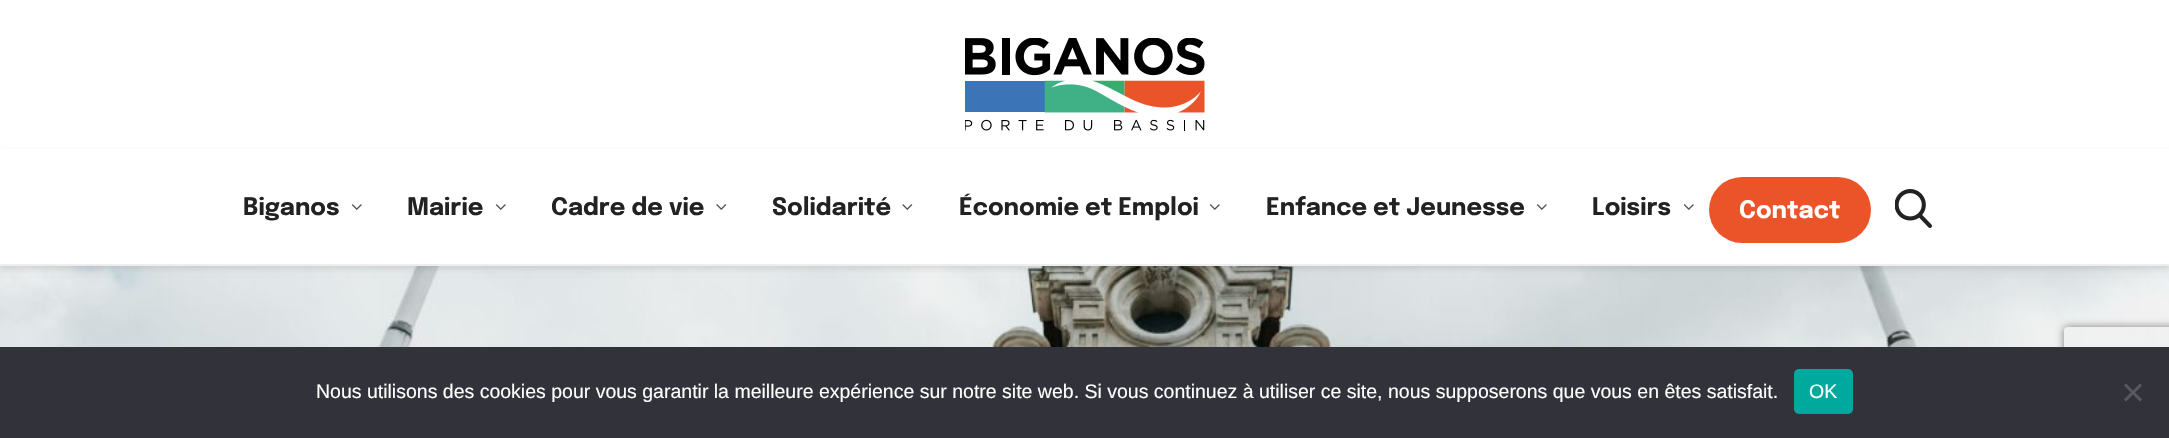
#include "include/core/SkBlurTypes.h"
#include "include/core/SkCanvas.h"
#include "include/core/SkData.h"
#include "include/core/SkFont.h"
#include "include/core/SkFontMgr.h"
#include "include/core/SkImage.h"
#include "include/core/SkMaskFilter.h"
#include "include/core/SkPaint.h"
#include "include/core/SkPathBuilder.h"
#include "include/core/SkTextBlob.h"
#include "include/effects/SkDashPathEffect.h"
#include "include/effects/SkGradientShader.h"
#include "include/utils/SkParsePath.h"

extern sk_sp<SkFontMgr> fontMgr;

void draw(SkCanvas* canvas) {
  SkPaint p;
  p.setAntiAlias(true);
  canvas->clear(SK_ColorWHITE);
  canvas->drawImageRect(SkImages::DeferredFromEncodedData(SkData::MakeFromFileName("images/1.png")), SkRect::MakeLTRB(965, 38, 1205, 131), SkSamplingOptions());
  canvas->drawImageRect(SkImages::DeferredFromEncodedData(SkData::MakeFromFileName("images/5.png")), SkRect::MakeLTRB(0, 266, 2169, 347), SkSamplingOptions());
  p.setColor(SkColorSetARGB(26, 0, 0, 0));
  p.setMaskFilter(SkMaskFilter::MakeBlur(kNormal_SkBlurStyle, 3));
  canvas->drawRect(SkRect::MakeLTRB(0, 152, 2169, 269), p);
  p.setMaskFilter(nullptr);
  p.setColor(SK_ColorWHITE);
  canvas->drawRect(SkRect::MakeLTRB(0, 149, 2169, 264), p);
  p.setColor(SkColorSetRGB(238, 238, 238));
  canvas->drawRect(SkRect::MakeLTRB(0, 264, 2169, 266), p);
  canvas->drawImageRect(SkImages::DeferredFromEncodedData(SkData::MakeFromFileName("images/2.png")), SkRect::MakeLTRB(351, 204, 362, 210), SkSamplingOptions());
  canvas->drawImageRect(SkImages::DeferredFromEncodedData(SkData::MakeFromFileName("images/2.png")), SkRect::MakeLTRB(495, 204, 506, 210), SkSamplingOptions());
  canvas->drawImageRect(SkImages::DeferredFromEncodedData(SkData::MakeFromFileName("images/3.png")), SkRect::MakeLTRB(716, 204, 727, 210), SkSamplingOptions());
  canvas->drawImageRect(SkImages::DeferredFromEncodedData(SkData::MakeFromFileName("images/3.png")), SkRect::MakeLTRB(902, 204, 913, 210), SkSamplingOptions());
  canvas->drawImageRect(SkImages::DeferredFromEncodedData(SkData::MakeFromFileName("images/2.png")), SkRect::MakeLTRB(1209, 204, 1220, 210), SkSamplingOptions());
  canvas->drawImageRect(SkImages::DeferredFromEncodedData(SkData::MakeFromFileName("images/2.png")), SkRect::MakeLTRB(1536, 204, 1547, 210), SkSamplingOptions());
  canvas->drawImageRect(SkImages::DeferredFromEncodedData(SkData::MakeFromFileName("images/2.png")), SkRect::MakeLTRB(1683, 204, 1694, 210), SkSamplingOptions());
  p.setColor(SkColorSetRGB(234, 84, 40));
  canvas->drawRoundRect(SkRect::MakeLTRB(1709, 177, 1871, 243), 33, 33, p);
  canvas->drawImageRect(SkImages::DeferredFromEncodedData(SkData::MakeFromFileName("images/4.png")), SkRect::MakeLTRB(1895, 189, 1932, 228), SkSamplingOptions());
  canvas->save();
  canvas->clipPath(SkPathBuilder(SkPathFillType::kEvenOdd).moveTo(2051, 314).lineTo(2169, 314).lineTo(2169, 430).lineTo(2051, 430).close().moveTo(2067, 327).lineTo(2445, 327).cubicTo(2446.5f, 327, 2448, 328.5f, 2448, 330).lineTo(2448, 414).cubicTo(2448, 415.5f, 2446.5f, 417, 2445, 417).lineTo(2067, 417).cubicTo(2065.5f, 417, 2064, 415.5f, 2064, 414).lineTo(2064, 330).cubicTo(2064, 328.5f, 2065.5f, 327, 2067, 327).close().detach(), true);
  p.setColor(SkColorSetRGB(128, 128, 128));
  p.setMaskFilter(SkMaskFilter::MakeBlur(kNormal_SkBlurStyle, 4));
  canvas->drawRoundRect(SkRect::MakeLTRB(2064, 327, 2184, 417), 3, 3, p);
  p.setMaskFilter(nullptr);
  canvas->restore();
  p.setColor(SkColorSetRGB(50, 50, 58));
  canvas->drawRect(SkRect::MakeLTRB(0, 347, 2169, 438), p);
  p.setColor(SkColorSetRGB(0, 169, 157));
  canvas->drawRoundRect(SkRect::MakeLTRB(1794, 369, 1853, 414), 5, 5, p);
  p.setColor(SkColorSetRGB(89, 89, 93));
  canvas->drawPath(SkPathBuilder().moveTo(2140, 383.5f).lineTo(2142, 385.5f).lineTo(2126, 401.5f).lineTo(2124, 399.5f).close().detach(), p);
  canvas->drawPath(SkPathBuilder().moveTo(2124, 385.5f).lineTo(2126, 383.5f).lineTo(2142, 399.5f).lineTo(2140, 401.5f).close().detach(), p);
  SkFont font1(fontMgr->matchFamilyStyle("Epilogue", SkFontStyle::Bold()), 24);
  font1.setSubpixel(true);
  p.setColor(SkColorSetRGB(34, 34, 34));
  canvas->drawString("Biganos", 243, 215, font1, p);
  canvas->drawString("Mairie", 407, 215, font1, p);
  canvas->drawString("Cadre de vie", 551, 215, font1, p);
  canvas->drawString("Solidarité", 772, 215, font1, p);
  canvas->drawString("Économie et Emploi", 959, 215, font1, p);
  canvas->drawString("Enfance et Jeunesse", 1266, 215, font1, p);
  canvas->drawString("Loisirs", 1592, 215, font1, p);
  p.setColor(SK_ColorWHITE);
  canvas->drawString("Contact", 1739, 218, font1, p);
  SkFont font2(fontMgr->matchFamilyStyle("Liberation Sans", SkFontStyle::Normal()), 19.5f);
  font2.setSubpixel(true);
  canvas->drawString("Nous utilisons des cookies pour vous garantir la meilleure expérience sur notre site web. Si vous continuez à utiliser ce site, nous supposerons que vous en êtes satisfait.", 316, 398, font2, p);
  canvas->drawString("OK", 1809, 398, font2, p);
}
